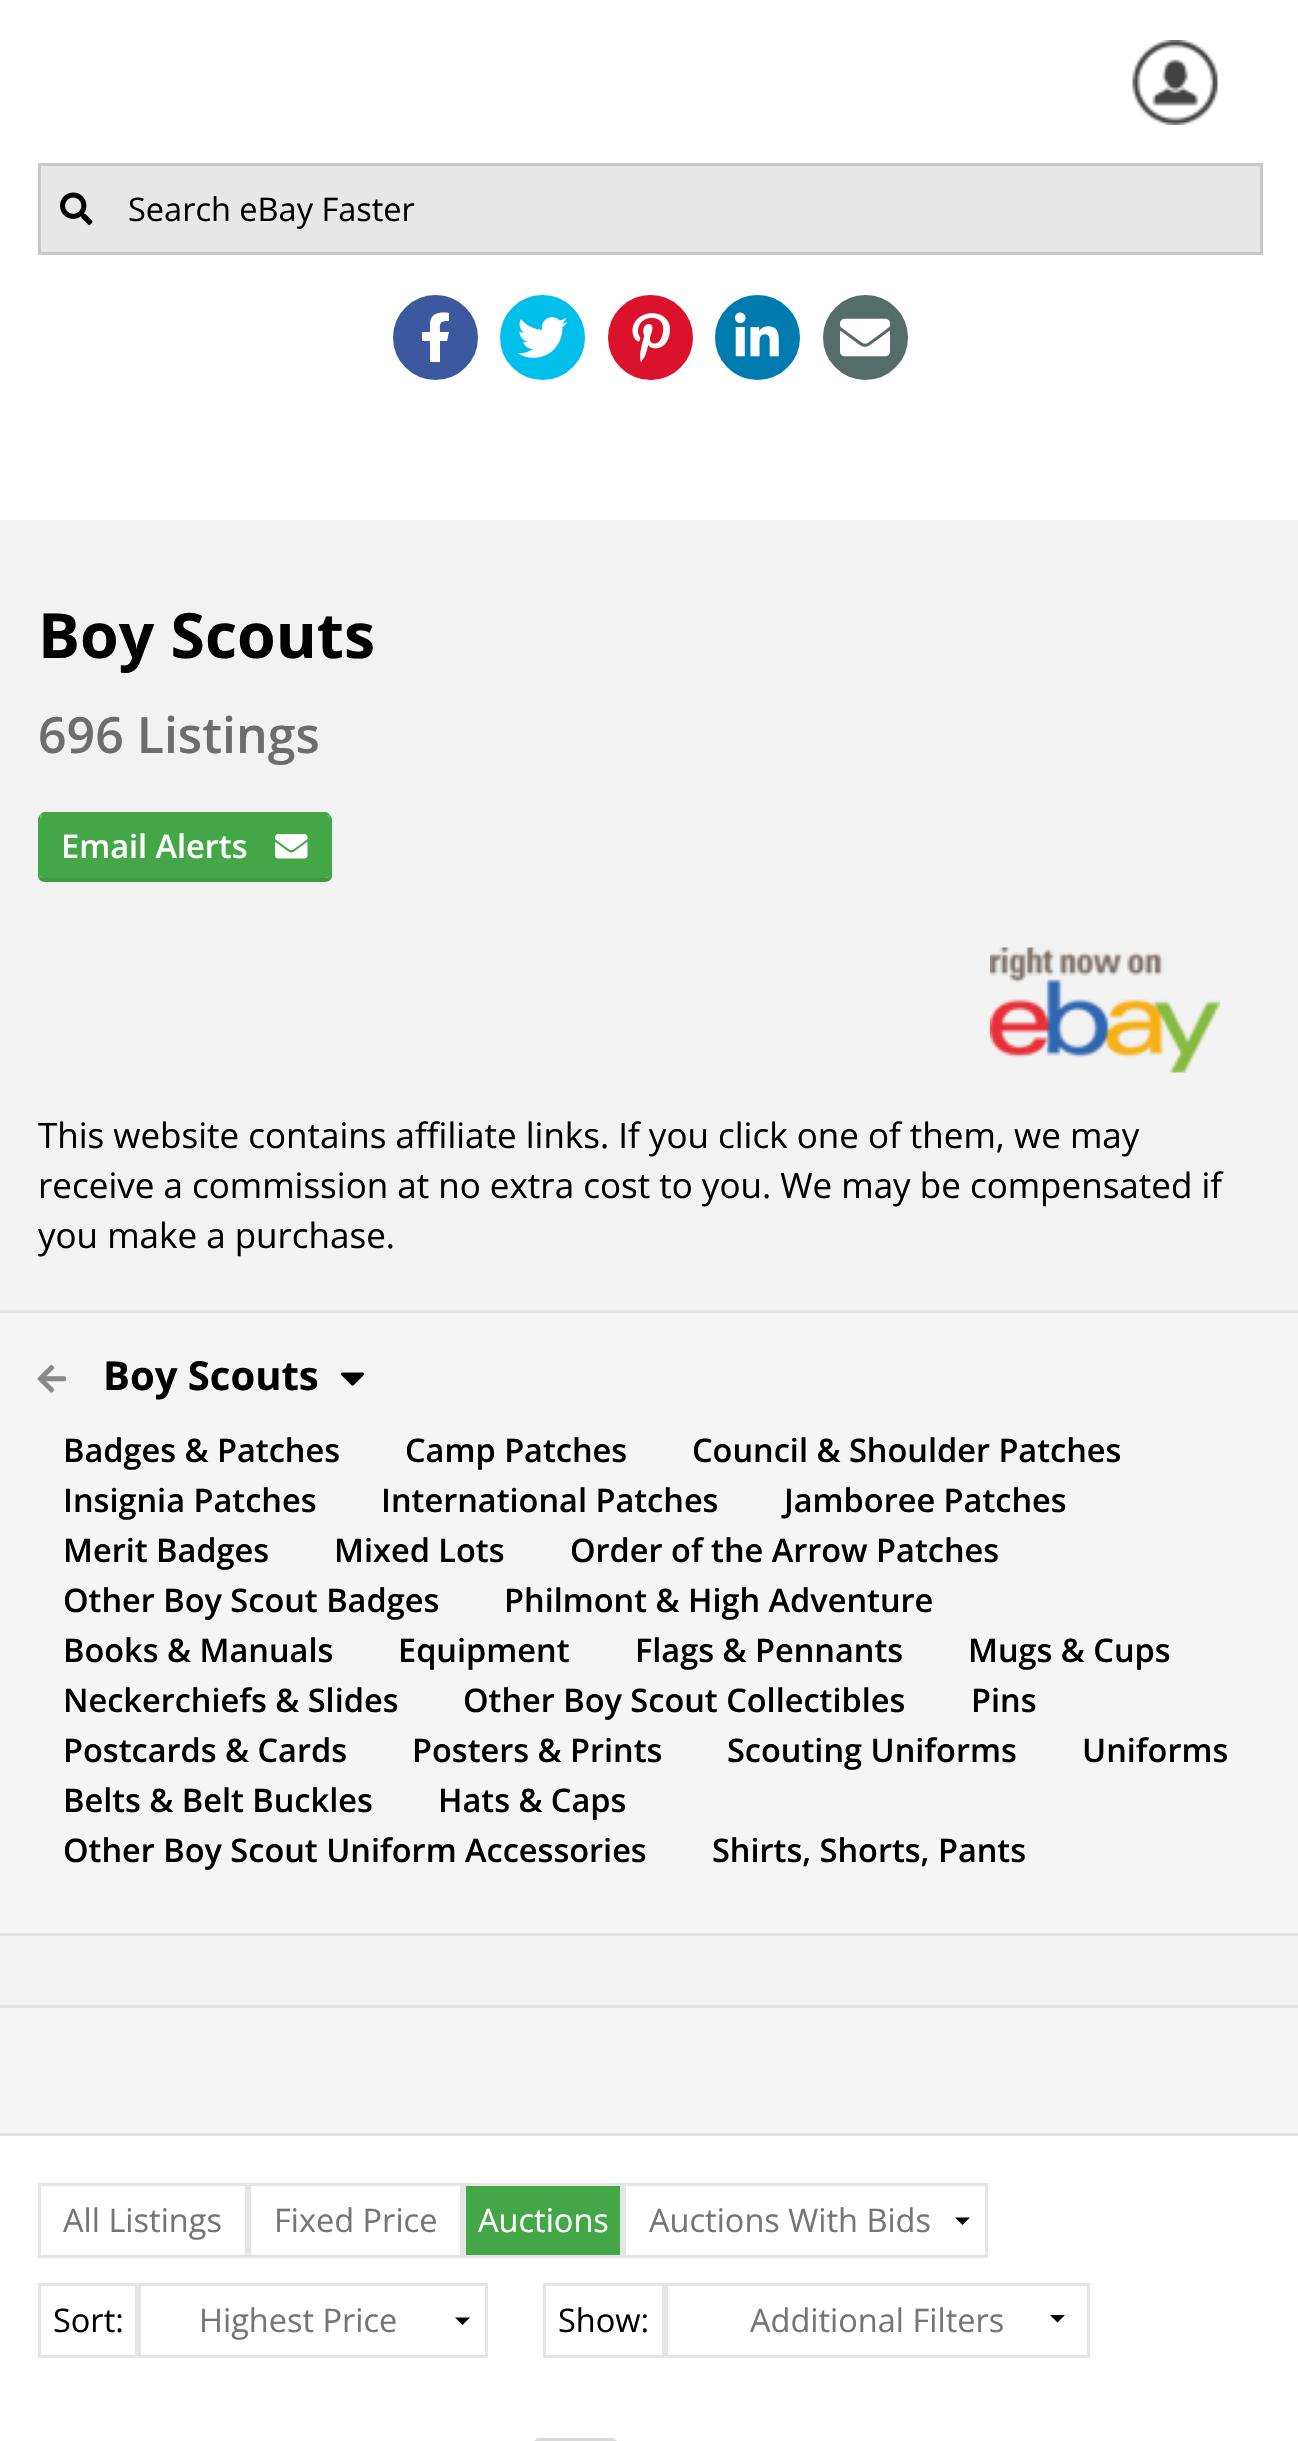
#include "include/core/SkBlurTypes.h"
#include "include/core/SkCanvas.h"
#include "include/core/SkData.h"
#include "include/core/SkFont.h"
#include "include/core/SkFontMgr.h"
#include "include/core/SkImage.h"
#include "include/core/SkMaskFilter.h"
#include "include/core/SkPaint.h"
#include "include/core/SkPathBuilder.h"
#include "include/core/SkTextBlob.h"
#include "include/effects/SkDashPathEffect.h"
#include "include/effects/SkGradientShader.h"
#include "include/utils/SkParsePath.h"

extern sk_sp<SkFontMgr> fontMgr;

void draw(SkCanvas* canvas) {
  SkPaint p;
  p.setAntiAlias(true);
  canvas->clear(SK_ColorWHITE);
  canvas->drawImageRect(SkImages::DeferredFromEncodedData(SkData::MakeFromFileName("images/1.png")), SkRect::MakeLTRB(1132, 40, 1218, 125), SkSamplingOptions());
  p.setColor(SkColorSetRGB(231, 231, 231));
  canvas->drawRect(SkRect::MakeLTRB(39.5f, 164.5f, 1261.5f, 253.5f), p);
  p.setStyle(SkPaint::kStroke_Style);
  p.setStrokeWidth(3);
  p.setColor(SkColorSetRGB(201, 199, 199));
  canvas->drawRect(SkRect::MakeLTRB(39.5f, 164.5f, 1261.5f, 253.5f), p);
  canvas->drawImageRect(SkImages::DeferredFromEncodedData(SkData::MakeFromFileName("images/2.png")), SkRect::MakeLTRB(60, 192, 93, 225), SkSamplingOptions());
  p.setStyle(SkPaint::kFill_Style);
  p.setColor(SkColorSetRGB(60, 88, 158));
  canvas->drawCircle(435.5f, 337.5f, 41, p);
  p.setStyle(SkPaint::kStroke_Style);
  canvas->drawCircle(435.5f, 337.5f, 41, p);
  p.setStyle(SkPaint::kFill_Style);
  p.setColor(SK_ColorWHITE);
  canvas->drawPath(SkPathBuilder().moveTo(447, 341).lineTo(449, 332).lineTo(440, 332).cubicTo(440, 323, 439, 321, 449, 321).lineTo(449, 313).cubicTo(441, 312, 432, 312, 430, 322).lineTo(430, 332).lineTo(422, 332).lineTo(422, 341).lineTo(430, 341).lineTo(430, 362).lineTo(440, 362).lineTo(440, 341).close().detach(), p);
  p.setColor(SkColorSetRGB(0, 191, 235));
  canvas->drawCircle(542.5f, 337.5f, 41, p);
  p.setStyle(SkPaint::kStroke_Style);
  canvas->drawCircle(542.5f, 337.5f, 41, p);
  canvas->drawImageRect(SkImages::DeferredFromEncodedData(SkData::MakeFromFileName("images/3.png")), SkRect::MakeLTRB(517, 317, 568, 358), SkSamplingOptions());
  p.setStyle(SkPaint::kFill_Style);
  p.setColor(SkColorSetRGB(220, 18, 44));
  canvas->drawCircle(650.5f, 337.5f, 41, p);
  p.setStyle(SkPaint::kStroke_Style);
  canvas->drawCircle(650.5f, 337.5f, 41, p);
  canvas->drawImageRect(SkImages::DeferredFromEncodedData(SkData::MakeFromFileName("images/4.png")), SkRect::MakeLTRB(632, 313, 670, 362), SkSamplingOptions());
  p.setStyle(SkPaint::kFill_Style);
  p.setColor(SkColorSetRGB(0, 123, 176));
  canvas->drawCircle(757.5f, 337.5f, 41, p);
  p.setStyle(SkPaint::kStroke_Style);
  canvas->drawCircle(757.5f, 337.5f, 41, p);
  canvas->drawImageRect(SkImages::DeferredFromEncodedData(SkData::MakeFromFileName("images/5.png")), SkRect::MakeLTRB(735, 312, 779, 357), SkSamplingOptions());
  p.setStyle(SkPaint::kFill_Style);
  p.setColor(SkColorSetRGB(85, 109, 105));
  canvas->drawCircle(865.5f, 337.5f, 41, p);
  p.setStyle(SkPaint::kStroke_Style);
  canvas->drawCircle(865.5f, 337.5f, 41, p);
  canvas->drawImageRect(SkImages::DeferredFromEncodedData(SkData::MakeFromFileName("images/6.png")), SkRect::MakeLTRB(840, 318, 890, 357), SkSamplingOptions());
  p.setStyle(SkPaint::kFill_Style);
  p.setColor(SkColorSetRGB(242, 242, 242));
  canvas->drawRect(SkRect::MakeLTRB(0, 520, 1298, 1310), p);
  p.setColor(SkColorSetRGB(67, 167, 71));
  canvas->drawPath(SkPathBuilder().moveTo(45, 815).lineTo(325, 815).cubicTo(328, 815, 330, 817, 330, 820).lineTo(330, 875).cubicTo(330, 876, 328, 878, 325, 878).lineTo(45, 878).cubicTo(42, 878, 40, 876, 40, 875).lineTo(40, 820).cubicTo(40, 817, 42, 815, 45, 815).close().detach(), p);
  canvas->drawPath(SkPathBuilder().moveTo(45, 815).cubicTo(44, 815, 42, 816, 41, 816).lineTo(40, 815).lineTo(43, 812).lineTo(327, 812).lineTo(330, 815).lineTo(329, 816).cubicTo(328, 816, 326, 815, 325, 815).close().detach(), p);
  canvas->drawPath(SkPathBuilder().moveTo(330, 815).cubicTo(331, 816, 332, 818, 332, 820).lineTo(332, 875).cubicTo(332, 877, 332, 878, 331, 879).lineTo(329, 876).lineTo(330, 875).lineTo(330, 819).lineTo(329, 816).close().detach(), p);
  p.setColor(SkColorSetRGB(61, 155, 65));
  canvas->drawPath(SkPathBuilder().moveTo(331, 879).cubicTo(330, 881, 327, 882, 325, 882).lineTo(45, 882).cubicTo(43, 882, 40, 881, 39, 879).lineTo(41, 876).cubicTo(41, 877, 43, 878, 45, 878).lineTo(325, 878).cubicTo(327, 878, 329, 877, 329, 876).close().detach(), p);
  p.setColor(SkColorSetRGB(67, 167, 71));
  canvas->drawPath(SkPathBuilder().moveTo(39, 879).cubicTo(38, 878, 38, 877, 38, 875).lineTo(38, 820).cubicTo(38, 818, 39, 816, 40, 815).lineTo(41, 816).lineTo(40, 819).lineTo(40, 875).lineTo(41, 876).close().detach(), p);
  canvas->drawImageRect(SkImages::DeferredFromEncodedData(SkData::MakeFromFileName("images/7.png")), SkRect::MakeLTRB(275, 834, 308, 859), SkSamplingOptions());
  canvas->drawImageRect(SkImages::DeferredFromEncodedData(SkData::MakeFromFileName("images/8.png")), SkRect::MakeLTRB(990, 947, 1220, 1073), SkSamplingOptions());
  p.setColor(SkColorSetRGB(245, 245, 245));
  canvas->drawRect(SkRect::MakeLTRB(0, 1313, 1298, 2133), p);
  p.setColor(SkColorSetRGB(229, 229, 229));
  canvas->drawRect(SkRect::MakeLTRB(0, 1310, 1298, 1313), p);
  canvas->drawImageRect(SkImages::DeferredFromEncodedData(SkData::MakeFromFileName("images/9.png")), SkRect::MakeLTRB(37, 1364, 66, 1393), SkSamplingOptions());
  canvas->drawImageRect(SkImages::DeferredFromEncodedData(SkData::MakeFromFileName("images/10.png")), SkRect::MakeLTRB(340, 1372, 365, 1386), SkSamplingOptions());
  p.setColor(SkColorSetRGB(242, 242, 242));
  canvas->drawRect(SkRect::MakeLTRB(0, 1936, 1298, 2005), p);
  p.setColor(SkColorSetRGB(225, 225, 225));
  canvas->drawRect(SkRect::MakeLTRB(0, 1933, 1298, 1936), p);
  canvas->drawRect(SkRect::MakeLTRB(0, 2005, 1298, 2008), p);
  canvas->drawRect(SkRect::MakeLTRB(0, 2133, 1298, 2136), p);
  p.setStyle(SkPaint::kStroke_Style);
  p.setColor(SkColorSetRGB(229, 229, 229));
  canvas->drawRect(SkRect::MakeLTRB(39.5f, 2184.5f, 246.5f, 2256.5f), p);
  canvas->drawRect(SkRect::MakeLTRB(249.5f, 2184.5f, 461.5f, 2256.5f), p);
  p.setStyle(SkPaint::kFill_Style);
  p.setColor(SkColorSetRGB(67, 167, 71));
  canvas->drawRect(SkRect::MakeLTRB(464.5f, 2184.5f, 621.5f, 2256.5f), p);
  p.setStyle(SkPaint::kStroke_Style);
  p.setColor(SkColorSetRGB(229, 229, 229));
  canvas->drawRect(SkRect::MakeLTRB(464.5f, 2184.5f, 621.5f, 2256.5f), p);
  canvas->drawRect(SkRect::MakeLTRB(624.5f, 2184.5f, 986.5f, 2256.5f), p);
  p.setStyle(SkPaint::kFill_Style);
  p.setColor(SK_ColorBLACK);
  canvas->drawPath(SkPathBuilder().moveTo(955, 2217.5f).lineTo(970, 2217.5f).lineTo(962.5f, 2225).close().detach(), p);
  p.setStyle(SkPaint::kStroke_Style);
  p.setColor(SkColorSetRGB(229, 229, 229));
  canvas->drawRect(SkRect::MakeLTRB(39.5f, 2284.5f, 136.5f, 2356.5f), p);
  canvas->drawRect(SkRect::MakeLTRB(139.5f, 2284.5f, 486.5f, 2356.5f), p);
  p.setStyle(SkPaint::kFill_Style);
  p.setColor(SK_ColorBLACK);
  canvas->drawPath(SkPathBuilder().moveTo(455, 2317.5f).lineTo(470, 2317.5f).lineTo(462.5f, 2325).close().detach(), p);
  p.setStyle(SkPaint::kStroke_Style);
  p.setColor(SkColorSetRGB(229, 229, 229));
  canvas->drawRect(SkRect::MakeLTRB(544.5f, 2284.5f, 663.5f, 2356.5f), p);
  canvas->drawRect(SkRect::MakeLTRB(666.5f, 2284.5f, 1088.5f, 2356.5f), p);
  p.setStyle(SkPaint::kFill_Style);
  p.setColor(SK_ColorBLACK);
  canvas->drawPath(SkPathBuilder().moveTo(1050, 2315).lineTo(1065, 2315).lineTo(1057.5f, 2322.5f).close().detach(), p);
  p.setStyle(SkPaint::kStroke_Style);
  p.setColor(SkColorSetRGB(217, 217, 217));
  canvas->drawRoundRect(SkRect::MakeLTRB(534.5f, 2439.5f, 616.5f, 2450.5f), 6.5f, 6.5f, p);
  SkFont font1(fontMgr->matchFamilyStyle("Open Sans", SkFontStyle::Normal()), 32.5f);
  font1.setSubpixel(true);
  p.setStyle(SkPaint::kFill_Style);
  p.setColor(SK_ColorBLACK);
  canvas->drawString("Search eBay Faster", 128, 221, font1, p);
  SkFont font2(fontMgr->matchFamilyStyle("Open Sans", SkFontStyle::Bold()), 62.5f);
  font2.setSubpixel(true);
  canvas->drawString("Boy Scouts", 38, 658, font2, p);
  SkFont font3(fontMgr->matchFamilyStyle("Open Sans", SkFontStyle(600, SkFontStyle::kNormal_Width, SkFontStyle::kUpright_Slant)), 50);
  font3.setSubpixel(true);
  p.setColor(SkColorSetRGB(109, 109, 109));
  canvas->drawString("696 Listings", 38, 753, font3, p);
  SkFont font4(fontMgr->matchFamilyStyle("Open Sans", SkFontStyle(600, SkFontStyle::kNormal_Width, SkFontStyle::kUpright_Slant)), 32.5f);
  font4.setSubpixel(true);
  p.setColor(SK_ColorWHITE);
  canvas->drawString("Email Alerts", 61, 858, font4, p);
  SkFont font5(fontMgr->matchFamilyStyle("Open Sans", SkFontStyle::Normal()), 35);
  font5.setSubpixel(true);
  p.setColor(SK_ColorBLACK);
  canvas->drawString("This website contains affiliate links. If you click one of them, we may", 38, 1148, font5, p);
  canvas->drawString("receive a commission at no extra cost to you. We may be compensated if", 38, 1198, font5, p);
  canvas->drawString("you make a purchase.", 38, 1248, font5, p);
  SkFont font6(fontMgr->matchFamilyStyle("Open Sans", SkFontStyle::Bold()), 40);
  font6.setSubpixel(true);
  canvas->drawString("Boy Scouts", 103, 1390, font6, p);
  canvas->drawString("Badges & Patches", 63, 1462, font4, p);
  canvas->drawString("Camp Patches", 405, 1462, font4, p);
  canvas->drawString("Council & Shoulder Patches", 692, 1462, font4, p);
  canvas->drawString("Insignia Patches", 63, 1512, font4, p);
  canvas->drawString("International Patches", 381, 1512, font4, p);
  canvas->drawString("Jamboree Patches", 784, 1512, font4, p);
  canvas->drawString("Merit Badges", 63, 1562, font4, p);
  canvas->drawString("Mixed Lots", 334, 1562, font4, p);
  canvas->drawString("Order of the Arrow Patches", 570, 1562, font4, p);
  canvas->drawString("Other Boy Scout Badges", 63, 1612, font4, p);
  canvas->drawString("Philmont & High Adventure", 504, 1612, font4, p);
  canvas->drawString("Books & Manuals", 63, 1662, font4, p);
  canvas->drawString("Equipment", 398, 1662, font4, p);
  canvas->drawString("Flags & Pennants", 635, 1662, font4, p);
  canvas->drawString("Mugs & Cups", 968, 1662, font4, p);
  canvas->drawString("Neckerchiefs & Slides", 63, 1712, font4, p);
  canvas->drawString("Other Boy Scout Collectibles", 463, 1712, font4, p);
  canvas->drawString("Pins", 971, 1712, font4, p);
  canvas->drawString("Postcards & Cards", 63, 1762, font4, p);
  canvas->drawString("Posters & Prints", 412, 1762, font4, p);
  canvas->drawString("Scouting Uniforms", 727, 1762, font4, p);
  canvas->drawString("Uniforms", 1082, 1762, font4, p);
  canvas->drawString("Belts & Belt Buckles", 63, 1812, font4, p);
  canvas->drawString("Hats & Caps", 438, 1812, font4, p);
  canvas->drawString("Other Boy Scout Uniform Accessories", 63, 1862, font4, p);
  canvas->drawString("Shirts, Shorts, Pants", 712, 1862, font4, p);
  p.setColor(SkColorSetRGB(117, 117, 117));
  canvas->drawString("All Listings", 63, 2232, font1, p);
  canvas->drawString("Fixed Price", 274, 2232, font1, p);
  p.setColor(SK_ColorWHITE);
  canvas->drawString("Auctions", 478, 2232, font1, p);
  p.setColor(SkColorSetRGB(117, 117, 117));
  canvas->drawString("Auctions With Bids", 649, 2232, font1, p);
  p.setColor(SK_ColorBLACK);
  canvas->drawString("Sort:", 53, 2332, font1, p);
  p.setColor(SkColorSetRGB(117, 117, 117));
  canvas->drawString("Highest Price", 199, 2332, font1, p);
  p.setColor(SK_ColorBLACK);
  canvas->drawString("Show:", 558, 2332, font1, p);
  p.setColor(SkColorSetRGB(117, 117, 117));
  canvas->drawString("Additional Filters", 750, 2332, font1, p);
}
